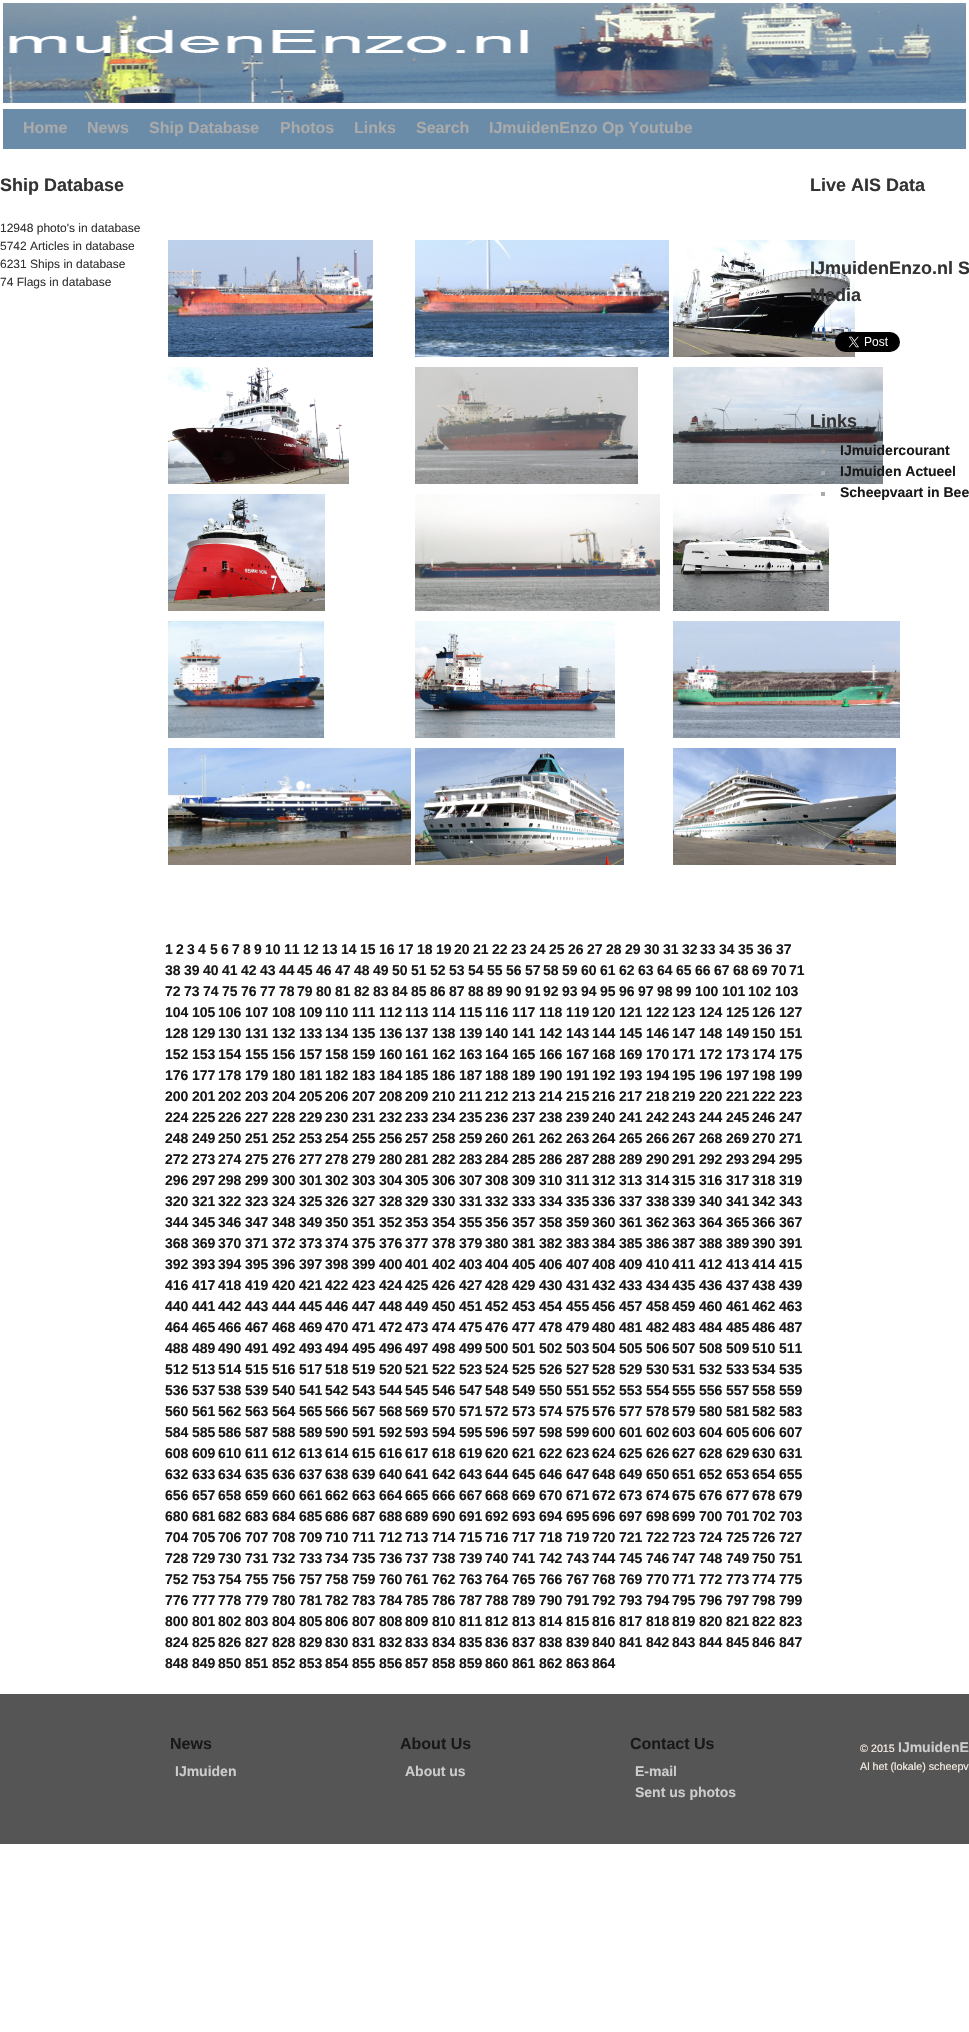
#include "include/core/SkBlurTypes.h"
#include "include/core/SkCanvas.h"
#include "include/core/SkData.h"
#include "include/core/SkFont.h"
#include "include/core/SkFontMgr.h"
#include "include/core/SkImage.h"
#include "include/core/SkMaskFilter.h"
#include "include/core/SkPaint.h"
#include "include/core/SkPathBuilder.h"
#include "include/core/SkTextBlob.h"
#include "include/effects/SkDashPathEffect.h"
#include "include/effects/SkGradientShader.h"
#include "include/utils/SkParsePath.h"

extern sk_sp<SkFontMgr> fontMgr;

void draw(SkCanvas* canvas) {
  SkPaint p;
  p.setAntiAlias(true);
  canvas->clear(SK_ColorWHITE);
  canvas->drawImageRect(SkImages::DeferredFromEncodedData(SkData::MakeFromFileName("images/1.png")), SkRect::MakeLTRB(3, 3, 966, 103), SkSamplingOptions());
  p.setColor(SkColorSetRGB(106, 140, 169));
  canvas->drawRect(SkRect::MakeLTRB(3, 109, 966, 149), p);
  canvas->drawImageRect(SkImages::DeferredFromEncodedData(SkData::MakeFromFileName("images/5.png")), SkRect::MakeLTRB(673, 240, 855, 357), SkSamplingOptions());
  canvas->drawImageRect(SkImages::DeferredFromEncodedData(SkData::MakeFromFileName("images/2.png")), SkRect::MakeLTRB(835, 332, 900, 352), SkSamplingOptions());
  canvas->drawImageRect(SkImages::DeferredFromEncodedData(SkData::MakeFromFileName("images/8.png")), SkRect::MakeLTRB(673, 367, 883, 484), SkSamplingOptions());
  p.setColor(SkColorSetRGB(170, 170, 170));
  canvas->drawRect(SkRect::MakeLTRB(821, 450, 825, 454), p);
  canvas->drawRect(SkRect::MakeLTRB(821, 471, 825, 475), p);
  canvas->drawImageRect(SkImages::DeferredFromEncodedData(SkData::MakeFromFileName("images/11.png")), SkRect::MakeLTRB(673, 494, 829, 611), SkSamplingOptions());
  canvas->drawRect(SkRect::MakeLTRB(821, 492, 825, 496), p);
  canvas->drawImageRect(SkImages::DeferredFromEncodedData(SkData::MakeFromFileName("images/3.png")), SkRect::MakeLTRB(168, 240, 373, 357), SkSamplingOptions());
  canvas->drawImageRect(SkImages::DeferredFromEncodedData(SkData::MakeFromFileName("images/4.png")), SkRect::MakeLTRB(415, 240, 669, 357), SkSamplingOptions());
  canvas->drawImageRect(SkImages::DeferredFromEncodedData(SkData::MakeFromFileName("images/6.png")), SkRect::MakeLTRB(168, 367, 349, 484), SkSamplingOptions());
  canvas->drawImageRect(SkImages::DeferredFromEncodedData(SkData::MakeFromFileName("images/7.png")), SkRect::MakeLTRB(415, 367, 638, 484), SkSamplingOptions());
  canvas->drawImageRect(SkImages::DeferredFromEncodedData(SkData::MakeFromFileName("images/9.png")), SkRect::MakeLTRB(168, 494, 325, 611), SkSamplingOptions());
  canvas->drawImageRect(SkImages::DeferredFromEncodedData(SkData::MakeFromFileName("images/10.png")), SkRect::MakeLTRB(415, 494, 660, 611), SkSamplingOptions());
  canvas->drawImageRect(SkImages::DeferredFromEncodedData(SkData::MakeFromFileName("images/12.png")), SkRect::MakeLTRB(168, 621, 324, 738), SkSamplingOptions());
  canvas->drawImageRect(SkImages::DeferredFromEncodedData(SkData::MakeFromFileName("images/13.png")), SkRect::MakeLTRB(415, 621, 615, 738), SkSamplingOptions());
  canvas->drawImageRect(SkImages::DeferredFromEncodedData(SkData::MakeFromFileName("images/14.png")), SkRect::MakeLTRB(673, 621, 900, 738), SkSamplingOptions());
  canvas->drawImageRect(SkImages::DeferredFromEncodedData(SkData::MakeFromFileName("images/15.png")), SkRect::MakeLTRB(168, 748, 411, 865), SkSamplingOptions());
  canvas->drawImageRect(SkImages::DeferredFromEncodedData(SkData::MakeFromFileName("images/16.png")), SkRect::MakeLTRB(415, 748, 624, 865), SkSamplingOptions());
  canvas->drawImageRect(SkImages::DeferredFromEncodedData(SkData::MakeFromFileName("images/17.png")), SkRect::MakeLTRB(673, 748, 896, 865), SkSamplingOptions());
  p.setColor(SkColorSetRGB(85, 85, 85));
  canvas->drawRect(SkRect::MakeLTRB(0, 1694, 969, 1844), p);
  SkFont font1(fontMgr->matchFamilyStyle("Liberation Sans", SkFontStyle::Bold()), 16);
  font1.setSubpixel(true);
  p.setColor(SkColorSetRGB(170, 170, 170));
  canvas->drawString("Home", 23, 133, font1, p);
  canvas->drawString("News", 87, 133, font1, p);
  canvas->drawString("Ship Database", 149, 133, font1, p);
  canvas->drawString("Photos", 280, 133, font1, p);
  canvas->drawString("Links", 354, 133, font1, p);
  canvas->drawString("Search", 416, 133, font1, p);
  canvas->drawString("IJmuidenEnzo Op Youtube", 489, 133, font1, p);
  SkFont font2(fontMgr->matchFamilyStyle("Liberation Sans", SkFontStyle::Bold()), 18);
  font2.setSubpixel(true);
  p.setColor(SkColorSetRGB(51, 51, 51));
  canvas->drawString("Ship Database", 0, 191, font2, p);
  SkFont font3(fontMgr->matchFamilyStyle("Liberation Sans", SkFontStyle::Normal()), 12);
  font3.setSubpixel(true);
  canvas->drawString("12948 photo's in database", 0, 232, font3, p);
  canvas->drawString("5742 Articles in database", 0, 250, font3, p);
  canvas->drawString("6231 Ships in database", 0, 268, font3, p);
  canvas->drawString("74 Flags in database", 0, 286, font3, p);
  canvas->drawString("Live AIS Data", 810, 191, font2, p);
  canvas->drawString("IJmuidenEnzo.nl S", 810, 274, font2, p);
  canvas->drawString("Media", 810, 301, font2, p);
  canvas->drawString("Links", 810, 427, font2, p);
  SkFont font4(fontMgr->matchFamilyStyle("Liberation Sans", SkFontStyle::Bold()), 14);
  font4.setSubpixel(true);
  p.setColor(SkColorSetRGB(25, 25, 25));
  canvas->drawString("IJmuidercourant", 840, 455, font4, p);
  canvas->drawString("IJmuiden Actueel", 840, 476, font4, p);
  canvas->drawString("Scheepvaart in Bee", 840, 497, font4, p);
  canvas->drawString("1", 165, 954, font4, p);
  canvas->drawString("2", 176, 954, font4, p);
  canvas->drawString("3", 187, 954, font4, p);
  canvas->drawString("4", 198, 954, font4, p);
  canvas->drawString("5", 210, 954, font4, p);
  canvas->drawString("6", 221, 954, font4, p);
  canvas->drawString("7", 232, 954, font4, p);
  canvas->drawString("8", 243, 954, font4, p);
  canvas->drawString("9", 254, 954, font4, p);
  canvas->drawString("10", 265, 954, font4, p);
  canvas->drawString("11", 284, 954, font4, p);
  canvas->drawString("12", 303, 954, font4, p);
  canvas->drawString("13", 322, 954, font4, p);
  canvas->drawString("14", 341, 954, font4, p);
  canvas->drawString("15", 360, 954, font4, p);
  canvas->drawString("16", 379, 954, font4, p);
  canvas->drawString("17", 398, 954, font4, p);
  canvas->drawString("18", 417, 954, font4, p);
  canvas->drawString("19", 436, 954, font4, p);
  canvas->drawString("20", 454, 954, font4, p);
  canvas->drawString("21", 473, 954, font4, p);
  canvas->drawString("22", 492, 954, font4, p);
  canvas->drawString("23", 511, 954, font4, p);
  canvas->drawString("24", 530, 954, font4, p);
  canvas->drawString("25", 549, 954, font4, p);
  canvas->drawString("26", 568, 954, font4, p);
  canvas->drawString("27", 587, 954, font4, p);
  canvas->drawString("28", 606, 954, font4, p);
  canvas->drawString("29", 625, 954, font4, p);
  canvas->drawString("30", 644, 954, font4, p);
  canvas->drawString("31", 663, 954, font4, p);
  canvas->drawString("32", 682, 954, font4, p);
  canvas->drawString("33", 700, 954, font4, p);
  canvas->drawString("34", 719, 954, font4, p);
  canvas->drawString("35", 738, 954, font4, p);
  canvas->drawString("36", 757, 954, font4, p);
  canvas->drawString("37", 776, 954, font4, p);
  canvas->drawString("38", 165, 975, font4, p);
  canvas->drawString("39", 184, 975, font4, p);
  canvas->drawString("40", 203, 975, font4, p);
  canvas->drawString("41", 222, 975, font4, p);
  canvas->drawString("42", 241, 975, font4, p);
  canvas->drawString("43", 260, 975, font4, p);
  canvas->drawString("44", 279, 975, font4, p);
  canvas->drawString("45", 297, 975, font4, p);
  canvas->drawString("46", 316, 975, font4, p);
  canvas->drawString("47", 335, 975, font4, p);
  canvas->drawString("48", 354, 975, font4, p);
  canvas->drawString("49", 373, 975, font4, p);
  canvas->drawString("50", 392, 975, font4, p);
  canvas->drawString("51", 411, 975, font4, p);
  canvas->drawString("52", 430, 975, font4, p);
  canvas->drawString("53", 449, 975, font4, p);
  canvas->drawString("54", 468, 975, font4, p);
  canvas->drawString("55", 487, 975, font4, p);
  canvas->drawString("56", 506, 975, font4, p);
  canvas->drawString("57", 525, 975, font4, p);
  canvas->drawString("58", 543, 975, font4, p);
  canvas->drawString("59", 562, 975, font4, p);
  canvas->drawString("60", 581, 975, font4, p);
  canvas->drawString("61", 600, 975, font4, p);
  canvas->drawString("62", 619, 975, font4, p);
  canvas->drawString("63", 638, 975, font4, p);
  canvas->drawString("64", 657, 975, font4, p);
  canvas->drawString("65", 676, 975, font4, p);
  canvas->drawString("66", 695, 975, font4, p);
  canvas->drawString("67", 714, 975, font4, p);
  canvas->drawString("68", 733, 975, font4, p);
  canvas->drawString("69", 752, 975, font4, p);
  canvas->drawString("70", 771, 975, font4, p);
  canvas->drawString("71", 789, 975, font4, p);
  canvas->drawString("72", 165, 996, font4, p);
  canvas->drawString("73", 184, 996, font4, p);
  canvas->drawString("74", 203, 996, font4, p);
  canvas->drawString("75", 222, 996, font4, p);
  canvas->drawString("76", 241, 996, font4, p);
  canvas->drawString("77", 260, 996, font4, p);
  canvas->drawString("78", 279, 996, font4, p);
  canvas->drawString("79", 297, 996, font4, p);
  canvas->drawString("80", 316, 996, font4, p);
  canvas->drawString("81", 335, 996, font4, p);
  canvas->drawString("82", 354, 996, font4, p);
  canvas->drawString("83", 373, 996, font4, p);
  canvas->drawString("84", 392, 996, font4, p);
  canvas->drawString("85", 411, 996, font4, p);
  canvas->drawString("86", 430, 996, font4, p);
  canvas->drawString("87", 449, 996, font4, p);
  canvas->drawString("88", 468, 996, font4, p);
  canvas->drawString("89", 487, 996, font4, p);
  canvas->drawString("90", 506, 996, font4, p);
  canvas->drawString("91", 525, 996, font4, p);
  canvas->drawString("92", 543, 996, font4, p);
  canvas->drawString("93", 562, 996, font4, p);
  canvas->drawString("94", 581, 996, font4, p);
  canvas->drawString("95", 600, 996, font4, p);
  canvas->drawString("96", 619, 996, font4, p);
  canvas->drawString("97", 638, 996, font4, p);
  canvas->drawString("98", 657, 996, font4, p);
  canvas->drawString("99", 676, 996, font4, p);
  canvas->drawString("100", 695, 996, font4, p);
  canvas->drawString("101", 722, 996, font4, p);
  canvas->drawString("102", 748, 996, font4, p);
  canvas->drawString("103", 775, 996, font4, p);
  canvas->drawString("104", 165, 1017, font4, p);
  canvas->drawString("105", 192, 1017, font4, p);
  canvas->drawString("106", 218, 1017, font4, p);
  canvas->drawString("107", 245, 1017, font4, p);
  canvas->drawString("108", 272, 1017, font4, p);
  canvas->drawString("109", 299, 1017, font4, p);
  canvas->drawString("110", 325, 1017, font4, p);
  canvas->drawString("111", 352, 1017, font4, p);
  canvas->drawString("112", 379, 1017, font4, p);
  canvas->drawString("113", 405, 1017, font4, p);
  canvas->drawString("114", 432, 1017, font4, p);
  canvas->drawString("115", 459, 1017, font4, p);
  canvas->drawString("116", 485, 1017, font4, p);
  canvas->drawString("117", 512, 1017, font4, p);
  canvas->drawString("118", 539, 1017, font4, p);
  canvas->drawString("119", 566, 1017, font4, p);
  canvas->drawString("120", 592, 1017, font4, p);
  canvas->drawString("121", 619, 1017, font4, p);
  canvas->drawString("122", 646, 1017, font4, p);
  canvas->drawString("123", 672, 1017, font4, p);
  canvas->drawString("124", 699, 1017, font4, p);
  canvas->drawString("125", 726, 1017, font4, p);
  canvas->drawString("126", 752, 1017, font4, p);
  canvas->drawString("127", 779, 1017, font4, p);
  canvas->drawString("128", 165, 1038, font4, p);
  canvas->drawString("129", 192, 1038, font4, p);
  canvas->drawString("130", 218, 1038, font4, p);
  canvas->drawString("131", 245, 1038, font4, p);
  canvas->drawString("132", 272, 1038, font4, p);
  canvas->drawString("133", 299, 1038, font4, p);
  canvas->drawString("134", 325, 1038, font4, p);
  canvas->drawString("135", 352, 1038, font4, p);
  canvas->drawString("136", 379, 1038, font4, p);
  canvas->drawString("137", 405, 1038, font4, p);
  canvas->drawString("138", 432, 1038, font4, p);
  canvas->drawString("139", 459, 1038, font4, p);
  canvas->drawString("140", 485, 1038, font4, p);
  canvas->drawString("141", 512, 1038, font4, p);
  canvas->drawString("142", 539, 1038, font4, p);
  canvas->drawString("143", 566, 1038, font4, p);
  canvas->drawString("144", 592, 1038, font4, p);
  canvas->drawString("145", 619, 1038, font4, p);
  canvas->drawString("146", 646, 1038, font4, p);
  canvas->drawString("147", 672, 1038, font4, p);
  canvas->drawString("148", 699, 1038, font4, p);
  canvas->drawString("149", 726, 1038, font4, p);
  canvas->drawString("150", 752, 1038, font4, p);
  canvas->drawString("151", 779, 1038, font4, p);
  canvas->drawString("152", 165, 1059, font4, p);
  canvas->drawString("153", 192, 1059, font4, p);
  canvas->drawString("154", 218, 1059, font4, p);
  canvas->drawString("155", 245, 1059, font4, p);
  canvas->drawString("156", 272, 1059, font4, p);
  canvas->drawString("157", 299, 1059, font4, p);
  canvas->drawString("158", 325, 1059, font4, p);
  canvas->drawString("159", 352, 1059, font4, p);
  canvas->drawString("160", 379, 1059, font4, p);
  canvas->drawString("161", 405, 1059, font4, p);
  canvas->drawString("162", 432, 1059, font4, p);
  canvas->drawString("163", 459, 1059, font4, p);
  canvas->drawString("164", 485, 1059, font4, p);
  canvas->drawString("165", 512, 1059, font4, p);
  canvas->drawString("166", 539, 1059, font4, p);
  canvas->drawString("167", 566, 1059, font4, p);
  canvas->drawString("168", 592, 1059, font4, p);
  canvas->drawString("169", 619, 1059, font4, p);
  canvas->drawString("170", 646, 1059, font4, p);
  canvas->drawString("171", 672, 1059, font4, p);
  canvas->drawString("172", 699, 1059, font4, p);
  canvas->drawString("173", 726, 1059, font4, p);
  canvas->drawString("174", 752, 1059, font4, p);
  canvas->drawString("175", 779, 1059, font4, p);
  canvas->drawString("176", 165, 1080, font4, p);
  canvas->drawString("177", 192, 1080, font4, p);
  canvas->drawString("178", 218, 1080, font4, p);
  canvas->drawString("179", 245, 1080, font4, p);
  canvas->drawString("180", 272, 1080, font4, p);
  canvas->drawString("181", 299, 1080, font4, p);
  canvas->drawString("182", 325, 1080, font4, p);
  canvas->drawString("183", 352, 1080, font4, p);
  canvas->drawString("184", 379, 1080, font4, p);
  canvas->drawString("185", 405, 1080, font4, p);
  canvas->drawString("186", 432, 1080, font4, p);
  canvas->drawString("187", 459, 1080, font4, p);
  canvas->drawString("188", 485, 1080, font4, p);
  canvas->drawString("189", 512, 1080, font4, p);
  canvas->drawString("190", 539, 1080, font4, p);
  canvas->drawString("191", 566, 1080, font4, p);
  canvas->drawString("192", 592, 1080, font4, p);
  canvas->drawString("193", 619, 1080, font4, p);
  canvas->drawString("194", 646, 1080, font4, p);
  canvas->drawString("195", 672, 1080, font4, p);
  canvas->drawString("196", 699, 1080, font4, p);
  canvas->drawString("197", 726, 1080, font4, p);
  canvas->drawString("198", 752, 1080, font4, p);
  canvas->drawString("199", 779, 1080, font4, p);
  canvas->drawString("200", 165, 1101, font4, p);
  canvas->drawString("201", 192, 1101, font4, p);
  canvas->drawString("202", 218, 1101, font4, p);
  canvas->drawString("203", 245, 1101, font4, p);
  canvas->drawString("204", 272, 1101, font4, p);
  canvas->drawString("205", 299, 1101, font4, p);
  canvas->drawString("206", 325, 1101, font4, p);
  canvas->drawString("207", 352, 1101, font4, p);
  canvas->drawString("208", 379, 1101, font4, p);
  canvas->drawString("209", 405, 1101, font4, p);
  canvas->drawString("210", 432, 1101, font4, p);
  canvas->drawString("211", 459, 1101, font4, p);
  canvas->drawString("212", 485, 1101, font4, p);
  canvas->drawString("213", 512, 1101, font4, p);
  canvas->drawString("214", 539, 1101, font4, p);
  canvas->drawString("215", 566, 1101, font4, p);
  canvas->drawString("216", 592, 1101, font4, p);
  canvas->drawString("217", 619, 1101, font4, p);
  canvas->drawString("218", 646, 1101, font4, p);
  canvas->drawString("219", 672, 1101, font4, p);
  canvas->drawString("220", 699, 1101, font4, p);
  canvas->drawString("221", 726, 1101, font4, p);
  canvas->drawString("222", 752, 1101, font4, p);
  canvas->drawString("223", 779, 1101, font4, p);
  canvas->drawString("224", 165, 1122, font4, p);
  canvas->drawString("225", 192, 1122, font4, p);
  canvas->drawString("226", 218, 1122, font4, p);
  canvas->drawString("227", 245, 1122, font4, p);
  canvas->drawString("228", 272, 1122, font4, p);
  canvas->drawString("229", 299, 1122, font4, p);
  canvas->drawString("230", 325, 1122, font4, p);
  canvas->drawString("231", 352, 1122, font4, p);
  canvas->drawString("232", 379, 1122, font4, p);
  canvas->drawString("233", 405, 1122, font4, p);
  canvas->drawString("234", 432, 1122, font4, p);
  canvas->drawString("235", 459, 1122, font4, p);
  canvas->drawString("236", 485, 1122, font4, p);
  canvas->drawString("237", 512, 1122, font4, p);
  canvas->drawString("238", 539, 1122, font4, p);
  canvas->drawString("239", 566, 1122, font4, p);
  canvas->drawString("240", 592, 1122, font4, p);
  canvas->drawString("241", 619, 1122, font4, p);
  canvas->drawString("242", 646, 1122, font4, p);
  canvas->drawString("243", 672, 1122, font4, p);
  canvas->drawString("244", 699, 1122, font4, p);
  canvas->drawString("245", 726, 1122, font4, p);
  canvas->drawString("246", 752, 1122, font4, p);
  canvas->drawString("247", 779, 1122, font4, p);
  canvas->drawString("248", 165, 1143, font4, p);
  canvas->drawString("249", 192, 1143, font4, p);
  canvas->drawString("250", 218, 1143, font4, p);
  canvas->drawString("251", 245, 1143, font4, p);
  canvas->drawString("252", 272, 1143, font4, p);
  canvas->drawString("253", 299, 1143, font4, p);
  canvas->drawString("254", 325, 1143, font4, p);
  canvas->drawString("255", 352, 1143, font4, p);
  canvas->drawString("256", 379, 1143, font4, p);
  canvas->drawString("257", 405, 1143, font4, p);
  canvas->drawString("258", 432, 1143, font4, p);
  canvas->drawString("259", 459, 1143, font4, p);
  canvas->drawString("260", 485, 1143, font4, p);
  canvas->drawString("261", 512, 1143, font4, p);
  canvas->drawString("262", 539, 1143, font4, p);
  canvas->drawString("263", 566, 1143, font4, p);
  canvas->drawString("264", 592, 1143, font4, p);
  canvas->drawString("265", 619, 1143, font4, p);
  canvas->drawString("266", 646, 1143, font4, p);
  canvas->drawString("267", 672, 1143, font4, p);
  canvas->drawString("268", 699, 1143, font4, p);
  canvas->drawString("269", 726, 1143, font4, p);
  canvas->drawString("270", 752, 1143, font4, p);
  canvas->drawString("271", 779, 1143, font4, p);
  canvas->drawString("272", 165, 1164, font4, p);
  canvas->drawString("273", 192, 1164, font4, p);
  canvas->drawString("274", 218, 1164, font4, p);
  canvas->drawString("275", 245, 1164, font4, p);
  canvas->drawString("276", 272, 1164, font4, p);
  canvas->drawString("277", 299, 1164, font4, p);
  canvas->drawString("278", 325, 1164, font4, p);
  canvas->drawString("279", 352, 1164, font4, p);
  canvas->drawString("280", 379, 1164, font4, p);
  canvas->drawString("281", 405, 1164, font4, p);
  canvas->drawString("282", 432, 1164, font4, p);
  canvas->drawString("283", 459, 1164, font4, p);
  canvas->drawString("284", 485, 1164, font4, p);
  canvas->drawString("285", 512, 1164, font4, p);
  canvas->drawString("286", 539, 1164, font4, p);
  canvas->drawString("287", 566, 1164, font4, p);
  canvas->drawString("288", 592, 1164, font4, p);
  canvas->drawString("289", 619, 1164, font4, p);
  canvas->drawString("290", 646, 1164, font4, p);
  canvas->drawString("291", 672, 1164, font4, p);
  canvas->drawString("292", 699, 1164, font4, p);
  canvas->drawString("293", 726, 1164, font4, p);
  canvas->drawString("294", 752, 1164, font4, p);
  canvas->drawString("295", 779, 1164, font4, p);
  canvas->drawString("296", 165, 1185, font4, p);
  canvas->drawString("297", 192, 1185, font4, p);
  canvas->drawString("298", 218, 1185, font4, p);
  canvas->drawString("299", 245, 1185, font4, p);
  canvas->drawString("300", 272, 1185, font4, p);
  canvas->drawString("301", 299, 1185, font4, p);
  canvas->drawString("302", 325, 1185, font4, p);
  canvas->drawString("303", 352, 1185, font4, p);
  canvas->drawString("304", 379, 1185, font4, p);
  canvas->drawString("305", 405, 1185, font4, p);
  canvas->drawString("306", 432, 1185, font4, p);
  canvas->drawString("307", 459, 1185, font4, p);
  canvas->drawString("308", 485, 1185, font4, p);
  canvas->drawString("309", 512, 1185, font4, p);
  canvas->drawString("310", 539, 1185, font4, p);
  canvas->drawString("311", 566, 1185, font4, p);
  canvas->drawString("312", 592, 1185, font4, p);
  canvas->drawString("313", 619, 1185, font4, p);
  canvas->drawString("314", 646, 1185, font4, p);
  canvas->drawString("315", 672, 1185, font4, p);
  canvas->drawString("316", 699, 1185, font4, p);
  canvas->drawString("317", 726, 1185, font4, p);
  canvas->drawString("318", 752, 1185, font4, p);
  canvas->drawString("319", 779, 1185, font4, p);
  canvas->drawString("320", 165, 1206, font4, p);
  canvas->drawString("321", 192, 1206, font4, p);
  canvas->drawString("322", 218, 1206, font4, p);
  canvas->drawString("323", 245, 1206, font4, p);
  canvas->drawString("324", 272, 1206, font4, p);
  canvas->drawString("325", 299, 1206, font4, p);
  canvas->drawString("326", 325, 1206, font4, p);
  canvas->drawString("327", 352, 1206, font4, p);
  canvas->drawString("328", 379, 1206, font4, p);
  canvas->drawString("329", 405, 1206, font4, p);
  canvas->drawString("330", 432, 1206, font4, p);
  canvas->drawString("331", 459, 1206, font4, p);
  canvas->drawString("332", 485, 1206, font4, p);
  canvas->drawString("333", 512, 1206, font4, p);
  canvas->drawString("334", 539, 1206, font4, p);
  canvas->drawString("335", 566, 1206, font4, p);
  canvas->drawString("336", 592, 1206, font4, p);
  canvas->drawString("337", 619, 1206, font4, p);
  canvas->drawString("338", 646, 1206, font4, p);
  canvas->drawString("339", 672, 1206, font4, p);
  canvas->drawString("340", 699, 1206, font4, p);
  canvas->drawString("341", 726, 1206, font4, p);
  canvas->drawString("342", 752, 1206, font4, p);
  canvas->drawString("343", 779, 1206, font4, p);
  canvas->drawString("344", 165, 1227, font4, p);
  canvas->drawString("345", 192, 1227, font4, p);
  canvas->drawString("346", 218, 1227, font4, p);
  canvas->drawString("347", 245, 1227, font4, p);
  canvas->drawString("348", 272, 1227, font4, p);
  canvas->drawString("349", 299, 1227, font4, p);
  canvas->drawString("350", 325, 1227, font4, p);
  canvas->drawString("351", 352, 1227, font4, p);
  canvas->drawString("352", 379, 1227, font4, p);
  canvas->drawString("353", 405, 1227, font4, p);
  canvas->drawString("354", 432, 1227, font4, p);
  canvas->drawString("355", 459, 1227, font4, p);
  canvas->drawString("356", 485, 1227, font4, p);
  canvas->drawString("357", 512, 1227, font4, p);
  canvas->drawString("358", 539, 1227, font4, p);
  canvas->drawString("359", 566, 1227, font4, p);
  canvas->drawString("360", 592, 1227, font4, p);
  canvas->drawString("361", 619, 1227, font4, p);
  canvas->drawString("362", 646, 1227, font4, p);
  canvas->drawString("363", 672, 1227, font4, p);
  canvas->drawString("364", 699, 1227, font4, p);
  canvas->drawString("365", 726, 1227, font4, p);
  canvas->drawString("366", 752, 1227, font4, p);
  canvas->drawString("367", 779, 1227, font4, p);
  canvas->drawString("368", 165, 1248, font4, p);
  canvas->drawString("369", 192, 1248, font4, p);
  canvas->drawString("370", 218, 1248, font4, p);
  canvas->drawString("371", 245, 1248, font4, p);
  canvas->drawString("372", 272, 1248, font4, p);
  canvas->drawString("373", 299, 1248, font4, p);
  canvas->drawString("374", 325, 1248, font4, p);
  canvas->drawString("375", 352, 1248, font4, p);
  canvas->drawString("376", 379, 1248, font4, p);
  canvas->drawString("377", 405, 1248, font4, p);
  canvas->drawString("378", 432, 1248, font4, p);
  canvas->drawString("379", 459, 1248, font4, p);
  canvas->drawString("380", 485, 1248, font4, p);
  canvas->drawString("381", 512, 1248, font4, p);
  canvas->drawString("382", 539, 1248, font4, p);
  canvas->drawString("383", 566, 1248, font4, p);
  canvas->drawString("384", 592, 1248, font4, p);
  canvas->drawString("385", 619, 1248, font4, p);
  canvas->drawString("386", 646, 1248, font4, p);
  canvas->drawString("387", 672, 1248, font4, p);
  canvas->drawString("388", 699, 1248, font4, p);
  canvas->drawString("389", 726, 1248, font4, p);
  canvas->drawString("390", 752, 1248, font4, p);
  canvas->drawString("391", 779, 1248, font4, p);
  canvas->drawString("392", 165, 1269, font4, p);
  canvas->drawString("393", 192, 1269, font4, p);
  canvas->drawString("394", 218, 1269, font4, p);
  canvas->drawString("395", 245, 1269, font4, p);
  canvas->drawString("396", 272, 1269, font4, p);
  canvas->drawString("397", 299, 1269, font4, p);
  canvas->drawString("398", 325, 1269, font4, p);
  canvas->drawString("399", 352, 1269, font4, p);
  canvas->drawString("400", 379, 1269, font4, p);
  canvas->drawString("401", 405, 1269, font4, p);
  canvas->drawString("402", 432, 1269, font4, p);
  canvas->drawString("403", 459, 1269, font4, p);
  canvas->drawString("404", 485, 1269, font4, p);
  canvas->drawString("405", 512, 1269, font4, p);
  canvas->drawString("406", 539, 1269, font4, p);
  canvas->drawString("407", 566, 1269, font4, p);
  canvas->drawString("408", 592, 1269, font4, p);
  canvas->drawString("409", 619, 1269, font4, p);
  canvas->drawString("410", 646, 1269, font4, p);
  canvas->drawString("411", 672, 1269, font4, p);
  canvas->drawString("412", 699, 1269, font4, p);
  canvas->drawString("413", 726, 1269, font4, p);
  canvas->drawString("414", 752, 1269, font4, p);
  canvas->drawString("415", 779, 1269, font4, p);
  canvas->drawString("416", 165, 1290, font4, p);
  canvas->drawString("417", 192, 1290, font4, p);
  canvas->drawString("418", 218, 1290, font4, p);
  canvas->drawString("419", 245, 1290, font4, p);
  canvas->drawString("420", 272, 1290, font4, p);
  canvas->drawString("421", 299, 1290, font4, p);
  canvas->drawString("422", 325, 1290, font4, p);
  canvas->drawString("423", 352, 1290, font4, p);
  canvas->drawString("424", 379, 1290, font4, p);
  canvas->drawString("425", 405, 1290, font4, p);
  canvas->drawString("426", 432, 1290, font4, p);
  canvas->drawString("427", 459, 1290, font4, p);
  canvas->drawString("428", 485, 1290, font4, p);
  canvas->drawString("429", 512, 1290, font4, p);
  canvas->drawString("430", 539, 1290, font4, p);
  canvas->drawString("431", 566, 1290, font4, p);
  canvas->drawString("432", 592, 1290, font4, p);
  canvas->drawString("433", 619, 1290, font4, p);
  canvas->drawString("434", 646, 1290, font4, p);
  canvas->drawString("435", 672, 1290, font4, p);
  canvas->drawString("436", 699, 1290, font4, p);
  canvas->drawString("437", 726, 1290, font4, p);
  canvas->drawString("438", 752, 1290, font4, p);
  canvas->drawString("439", 779, 1290, font4, p);
  canvas->drawString("440", 165, 1311, font4, p);
  canvas->drawString("441", 192, 1311, font4, p);
  canvas->drawString("442", 218, 1311, font4, p);
  canvas->drawString("443", 245, 1311, font4, p);
  canvas->drawString("444", 272, 1311, font4, p);
  canvas->drawString("445", 299, 1311, font4, p);
  canvas->drawString("446", 325, 1311, font4, p);
  canvas->drawString("447", 352, 1311, font4, p);
  canvas->drawString("448", 379, 1311, font4, p);
  canvas->drawString("449", 405, 1311, font4, p);
  canvas->drawString("450", 432, 1311, font4, p);
  canvas->drawString("451", 459, 1311, font4, p);
  canvas->drawString("452", 485, 1311, font4, p);
  canvas->drawString("453", 512, 1311, font4, p);
  canvas->drawString("454", 539, 1311, font4, p);
  canvas->drawString("455", 566, 1311, font4, p);
  canvas->drawString("456", 592, 1311, font4, p);
  canvas->drawString("457", 619, 1311, font4, p);
  canvas->drawString("458", 646, 1311, font4, p);
  canvas->drawString("459", 672, 1311, font4, p);
  canvas->drawString("460", 699, 1311, font4, p);
  canvas->drawString("461", 726, 1311, font4, p);
  canvas->drawString("462", 752, 1311, font4, p);
  canvas->drawString("463", 779, 1311, font4, p);
  canvas->drawString("464", 165, 1332, font4, p);
  canvas->drawString("465", 192, 1332, font4, p);
  canvas->drawString("466", 218, 1332, font4, p);
  canvas->drawString("467", 245, 1332, font4, p);
  canvas->drawString("468", 272, 1332, font4, p);
  canvas->drawString("469", 299, 1332, font4, p);
  canvas->drawString("470", 325, 1332, font4, p);
  canvas->drawString("471", 352, 1332, font4, p);
  canvas->drawString("472", 379, 1332, font4, p);
  canvas->drawString("473", 405, 1332, font4, p);
  canvas->drawString("474", 432, 1332, font4, p);
  canvas->drawString("475", 459, 1332, font4, p);
  canvas->drawString("476", 485, 1332, font4, p);
  canvas->drawString("477", 512, 1332, font4, p);
  canvas->drawString("478", 539, 1332, font4, p);
  canvas->drawString("479", 566, 1332, font4, p);
  canvas->drawString("480", 592, 1332, font4, p);
  canvas->drawString("481", 619, 1332, font4, p);
  canvas->drawString("482", 646, 1332, font4, p);
  canvas->drawString("483", 672, 1332, font4, p);
  canvas->drawString("484", 699, 1332, font4, p);
  canvas->drawString("485", 726, 1332, font4, p);
  canvas->drawString("486", 752, 1332, font4, p);
  canvas->drawString("487", 779, 1332, font4, p);
  canvas->drawString("488", 165, 1353, font4, p);
  canvas->drawString("489", 192, 1353, font4, p);
  canvas->drawString("490", 218, 1353, font4, p);
  canvas->drawString("491", 245, 1353, font4, p);
  canvas->drawString("492", 272, 1353, font4, p);
  canvas->drawString("493", 299, 1353, font4, p);
  canvas->drawString("494", 325, 1353, font4, p);
  canvas->drawString("495", 352, 1353, font4, p);
  canvas->drawString("496", 379, 1353, font4, p);
  canvas->drawString("497", 405, 1353, font4, p);
  canvas->drawString("498", 432, 1353, font4, p);
  canvas->drawString("499", 459, 1353, font4, p);
  canvas->drawString("500", 485, 1353, font4, p);
  canvas->drawString("501", 512, 1353, font4, p);
  canvas->drawString("502", 539, 1353, font4, p);
  canvas->drawString("503", 566, 1353, font4, p);
  canvas->drawString("504", 592, 1353, font4, p);
  canvas->drawString("505", 619, 1353, font4, p);
  canvas->drawString("506", 646, 1353, font4, p);
  canvas->drawString("507", 672, 1353, font4, p);
  canvas->drawString("508", 699, 1353, font4, p);
  canvas->drawString("509", 726, 1353, font4, p);
  canvas->drawString("510", 752, 1353, font4, p);
  canvas->drawString("511", 779, 1353, font4, p);
  canvas->drawString("512", 165, 1374, font4, p);
  canvas->drawString("513", 192, 1374, font4, p);
  canvas->drawString("514", 218, 1374, font4, p);
  canvas->drawString("515", 245, 1374, font4, p);
  canvas->drawString("516", 272, 1374, font4, p);
  canvas->drawString("517", 299, 1374, font4, p);
  canvas->drawString("518", 325, 1374, font4, p);
  canvas->drawString("519", 352, 1374, font4, p);
  canvas->drawString("520", 379, 1374, font4, p);
  canvas->drawString("521", 405, 1374, font4, p);
  canvas->drawString("522", 432, 1374, font4, p);
  canvas->drawString("523", 459, 1374, font4, p);
  canvas->drawString("524", 485, 1374, font4, p);
  canvas->drawString("525", 512, 1374, font4, p);
  canvas->drawString("526", 539, 1374, font4, p);
  canvas->drawString("527", 566, 1374, font4, p);
  canvas->drawString("528", 592, 1374, font4, p);
  canvas->drawString("529", 619, 1374, font4, p);
  canvas->drawString("530", 646, 1374, font4, p);
  canvas->drawString("531", 672, 1374, font4, p);
  canvas->drawString("532", 699, 1374, font4, p);
  canvas->drawString("533", 726, 1374, font4, p);
  canvas->drawString("534", 752, 1374, font4, p);
  canvas->drawString("535", 779, 1374, font4, p);
  canvas->drawString("536", 165, 1395, font4, p);
  canvas->drawString("537", 192, 1395, font4, p);
  canvas->drawString("538", 218, 1395, font4, p);
  canvas->drawString("539", 245, 1395, font4, p);
  canvas->drawString("540", 272, 1395, font4, p);
  canvas->drawString("541", 299, 1395, font4, p);
  canvas->drawString("542", 325, 1395, font4, p);
  canvas->drawString("543", 352, 1395, font4, p);
  canvas->drawString("544", 379, 1395, font4, p);
  canvas->drawString("545", 405, 1395, font4, p);
  canvas->drawString("546", 432, 1395, font4, p);
  canvas->drawString("547", 459, 1395, font4, p);
  canvas->drawString("548", 485, 1395, font4, p);
  canvas->drawString("549", 512, 1395, font4, p);
  canvas->drawString("550", 539, 1395, font4, p);
  canvas->drawString("551", 566, 1395, font4, p);
  canvas->drawString("552", 592, 1395, font4, p);
  canvas->drawString("553", 619, 1395, font4, p);
  canvas->drawString("554", 646, 1395, font4, p);
  canvas->drawString("555", 672, 1395, font4, p);
  canvas->drawString("556", 699, 1395, font4, p);
  canvas->drawString("557", 726, 1395, font4, p);
  canvas->drawString("558", 752, 1395, font4, p);
  canvas->drawString("559", 779, 1395, font4, p);
  canvas->drawString("560", 165, 1416, font4, p);
  canvas->drawString("561", 192, 1416, font4, p);
  canvas->drawString("562", 218, 1416, font4, p);
  canvas->drawString("563", 245, 1416, font4, p);
  canvas->drawString("564", 272, 1416, font4, p);
  canvas->drawString("565", 299, 1416, font4, p);
  canvas->drawString("566", 325, 1416, font4, p);
  canvas->drawString("567", 352, 1416, font4, p);
  canvas->drawString("568", 379, 1416, font4, p);
  canvas->drawString("569", 405, 1416, font4, p);
  canvas->drawString("570", 432, 1416, font4, p);
  canvas->drawString("571", 459, 1416, font4, p);
  canvas->drawString("572", 485, 1416, font4, p);
  canvas->drawString("573", 512, 1416, font4, p);
  canvas->drawString("574", 539, 1416, font4, p);
  canvas->drawString("575", 566, 1416, font4, p);
  canvas->drawString("576", 592, 1416, font4, p);
  canvas->drawString("577", 619, 1416, font4, p);
  canvas->drawString("578", 646, 1416, font4, p);
  canvas->drawString("579", 672, 1416, font4, p);
  canvas->drawString("580", 699, 1416, font4, p);
  canvas->drawString("581", 726, 1416, font4, p);
  canvas->drawString("582", 752, 1416, font4, p);
  canvas->drawString("583", 779, 1416, font4, p);
  canvas->drawString("584", 165, 1437, font4, p);
  canvas->drawString("585", 192, 1437, font4, p);
  canvas->drawString("586", 218, 1437, font4, p);
  canvas->drawString("587", 245, 1437, font4, p);
  canvas->drawString("588", 272, 1437, font4, p);
  canvas->drawString("589", 299, 1437, font4, p);
  canvas->drawString("590", 325, 1437, font4, p);
  canvas->drawString("591", 352, 1437, font4, p);
  canvas->drawString("592", 379, 1437, font4, p);
  canvas->drawString("593", 405, 1437, font4, p);
  canvas->drawString("594", 432, 1437, font4, p);
  canvas->drawString("595", 459, 1437, font4, p);
  canvas->drawString("596", 485, 1437, font4, p);
  canvas->drawString("597", 512, 1437, font4, p);
  canvas->drawString("598", 539, 1437, font4, p);
  canvas->drawString("599", 566, 1437, font4, p);
  canvas->drawString("600", 592, 1437, font4, p);
  canvas->drawString("601", 619, 1437, font4, p);
  canvas->drawString("602", 646, 1437, font4, p);
  canvas->drawString("603", 672, 1437, font4, p);
  canvas->drawString("604", 699, 1437, font4, p);
  canvas->drawString("605", 726, 1437, font4, p);
  canvas->drawString("606", 752, 1437, font4, p);
  canvas->drawString("607", 779, 1437, font4, p);
  canvas->drawString("608", 165, 1458, font4, p);
  canvas->drawString("609", 192, 1458, font4, p);
  canvas->drawString("610", 218, 1458, font4, p);
  canvas->drawString("611", 245, 1458, font4, p);
  canvas->drawString("612", 272, 1458, font4, p);
  canvas->drawString("613", 299, 1458, font4, p);
  canvas->drawString("614", 325, 1458, font4, p);
  canvas->drawString("615", 352, 1458, font4, p);
  canvas->drawString("616", 379, 1458, font4, p);
  canvas->drawString("617", 405, 1458, font4, p);
  canvas->drawString("618", 432, 1458, font4, p);
  canvas->drawString("619", 459, 1458, font4, p);
  canvas->drawString("620", 485, 1458, font4, p);
  canvas->drawString("621", 512, 1458, font4, p);
  canvas->drawString("622", 539, 1458, font4, p);
  canvas->drawString("623", 566, 1458, font4, p);
  canvas->drawString("624", 592, 1458, font4, p);
  canvas->drawString("625", 619, 1458, font4, p);
  canvas->drawString("626", 646, 1458, font4, p);
  canvas->drawString("627", 672, 1458, font4, p);
  canvas->drawString("628", 699, 1458, font4, p);
  canvas->drawString("629", 726, 1458, font4, p);
  canvas->drawString("630", 752, 1458, font4, p);
  canvas->drawString("631", 779, 1458, font4, p);
  canvas->drawString("632", 165, 1479, font4, p);
  canvas->drawString("633", 192, 1479, font4, p);
  canvas->drawString("634", 218, 1479, font4, p);
  canvas->drawString("635", 245, 1479, font4, p);
  canvas->drawString("636", 272, 1479, font4, p);
  canvas->drawString("637", 299, 1479, font4, p);
  canvas->drawString("638", 325, 1479, font4, p);
  canvas->drawString("639", 352, 1479, font4, p);
  canvas->drawString("640", 379, 1479, font4, p);
  canvas->drawString("641", 405, 1479, font4, p);
  canvas->drawString("642", 432, 1479, font4, p);
  canvas->drawString("643", 459, 1479, font4, p);
  canvas->drawString("644", 485, 1479, font4, p);
  canvas->drawString("645", 512, 1479, font4, p);
  canvas->drawString("646", 539, 1479, font4, p);
  canvas->drawString("647", 566, 1479, font4, p);
  canvas->drawString("648", 592, 1479, font4, p);
  canvas->drawString("649", 619, 1479, font4, p);
  canvas->drawString("650", 646, 1479, font4, p);
  canvas->drawString("651", 672, 1479, font4, p);
  canvas->drawString("652", 699, 1479, font4, p);
  canvas->drawString("653", 726, 1479, font4, p);
  canvas->drawString("654", 752, 1479, font4, p);
  canvas->drawString("655", 779, 1479, font4, p);
  canvas->drawString("656", 165, 1500, font4, p);
  canvas->drawString("657", 192, 1500, font4, p);
  canvas->drawString("658", 218, 1500, font4, p);
  canvas->drawString("659", 245, 1500, font4, p);
  canvas->drawString("660", 272, 1500, font4, p);
  canvas->drawString("661", 299, 1500, font4, p);
  canvas->drawString("662", 325, 1500, font4, p);
  canvas->drawString("663", 352, 1500, font4, p);
  canvas->drawString("664", 379, 1500, font4, p);
  canvas->drawString("665", 405, 1500, font4, p);
  canvas->drawString("666", 432, 1500, font4, p);
  canvas->drawString("667", 459, 1500, font4, p);
  canvas->drawString("668", 485, 1500, font4, p);
  canvas->drawString("669", 512, 1500, font4, p);
  canvas->drawString("670", 539, 1500, font4, p);
  canvas->drawString("671", 566, 1500, font4, p);
  canvas->drawString("672", 592, 1500, font4, p);
  canvas->drawString("673", 619, 1500, font4, p);
  canvas->drawString("674", 646, 1500, font4, p);
  canvas->drawString("675", 672, 1500, font4, p);
  canvas->drawString("676", 699, 1500, font4, p);
  canvas->drawString("677", 726, 1500, font4, p);
  canvas->drawString("678", 752, 1500, font4, p);
  canvas->drawString("679", 779, 1500, font4, p);
  canvas->drawString("680", 165, 1521, font4, p);
  canvas->drawString("681", 192, 1521, font4, p);
  canvas->drawString("682", 218, 1521, font4, p);
  canvas->drawString("683", 245, 1521, font4, p);
  canvas->drawString("684", 272, 1521, font4, p);
  canvas->drawString("685", 299, 1521, font4, p);
  canvas->drawString("686", 325, 1521, font4, p);
  canvas->drawString("687", 352, 1521, font4, p);
  canvas->drawString("688", 379, 1521, font4, p);
  canvas->drawString("689", 405, 1521, font4, p);
  canvas->drawString("690", 432, 1521, font4, p);
  canvas->drawString("691", 459, 1521, font4, p);
  canvas->drawString("692", 485, 1521, font4, p);
  canvas->drawString("693", 512, 1521, font4, p);
  canvas->drawString("694", 539, 1521, font4, p);
  canvas->drawString("695", 566, 1521, font4, p);
  canvas->drawString("696", 592, 1521, font4, p);
  canvas->drawString("697", 619, 1521, font4, p);
  canvas->drawString("698", 646, 1521, font4, p);
  canvas->drawString("699", 672, 1521, font4, p);
  canvas->drawString("700", 699, 1521, font4, p);
  canvas->drawString("701", 726, 1521, font4, p);
  canvas->drawString("702", 752, 1521, font4, p);
  canvas->drawString("703", 779, 1521, font4, p);
  canvas->drawString("704", 165, 1542, font4, p);
  canvas->drawString("705", 192, 1542, font4, p);
  canvas->drawString("706", 218, 1542, font4, p);
  canvas->drawString("707", 245, 1542, font4, p);
  canvas->drawString("708", 272, 1542, font4, p);
  canvas->drawString("709", 299, 1542, font4, p);
  canvas->drawString("710", 325, 1542, font4, p);
  canvas->drawString("711", 352, 1542, font4, p);
  canvas->drawString("712", 379, 1542, font4, p);
  canvas->drawString("713", 405, 1542, font4, p);
  canvas->drawString("714", 432, 1542, font4, p);
  canvas->drawString("715", 459, 1542, font4, p);
  canvas->drawString("716", 485, 1542, font4, p);
  canvas->drawString("717", 512, 1542, font4, p);
  canvas->drawString("718", 539, 1542, font4, p);
  canvas->drawString("719", 566, 1542, font4, p);
  canvas->drawString("720", 592, 1542, font4, p);
  canvas->drawString("721", 619, 1542, font4, p);
  canvas->drawString("722", 646, 1542, font4, p);
  canvas->drawString("723", 672, 1542, font4, p);
  canvas->drawString("724", 699, 1542, font4, p);
  canvas->drawString("725", 726, 1542, font4, p);
  canvas->drawString("726", 752, 1542, font4, p);
  canvas->drawString("727", 779, 1542, font4, p);
  canvas->drawString("728", 165, 1563, font4, p);
  canvas->drawString("729", 192, 1563, font4, p);
  canvas->drawString("730", 218, 1563, font4, p);
  canvas->drawString("731", 245, 1563, font4, p);
  canvas->drawString("732", 272, 1563, font4, p);
  canvas->drawString("733", 299, 1563, font4, p);
  canvas->drawString("734", 325, 1563, font4, p);
  canvas->drawString("735", 352, 1563, font4, p);
  canvas->drawString("736", 379, 1563, font4, p);
  canvas->drawString("737", 405, 1563, font4, p);
  canvas->drawString("738", 432, 1563, font4, p);
  canvas->drawString("739", 459, 1563, font4, p);
  canvas->drawString("740", 485, 1563, font4, p);
  canvas->drawString("741", 512, 1563, font4, p);
  canvas->drawString("742", 539, 1563, font4, p);
  canvas->drawString("743", 566, 1563, font4, p);
  canvas->drawString("744", 592, 1563, font4, p);
  canvas->drawString("745", 619, 1563, font4, p);
  canvas->drawString("746", 646, 1563, font4, p);
  canvas->drawString("747", 672, 1563, font4, p);
  canvas->drawString("748", 699, 1563, font4, p);
  canvas->drawString("749", 726, 1563, font4, p);
  canvas->drawString("750", 752, 1563, font4, p);
  canvas->drawString("751", 779, 1563, font4, p);
  canvas->drawString("752", 165, 1584, font4, p);
  canvas->drawString("753", 192, 1584, font4, p);
  canvas->drawString("754", 218, 1584, font4, p);
  canvas->drawString("755", 245, 1584, font4, p);
  canvas->drawString("756", 272, 1584, font4, p);
  canvas->drawString("757", 299, 1584, font4, p);
  canvas->drawString("758", 325, 1584, font4, p);
  canvas->drawString("759", 352, 1584, font4, p);
  canvas->drawString("760", 379, 1584, font4, p);
  canvas->drawString("761", 405, 1584, font4, p);
  canvas->drawString("762", 432, 1584, font4, p);
  canvas->drawString("763", 459, 1584, font4, p);
  canvas->drawString("764", 485, 1584, font4, p);
  canvas->drawString("765", 512, 1584, font4, p);
  canvas->drawString("766", 539, 1584, font4, p);
  canvas->drawString("767", 566, 1584, font4, p);
  canvas->drawString("768", 592, 1584, font4, p);
  canvas->drawString("769", 619, 1584, font4, p);
  canvas->drawString("770", 646, 1584, font4, p);
  canvas->drawString("771", 672, 1584, font4, p);
  canvas->drawString("772", 699, 1584, font4, p);
  canvas->drawString("773", 726, 1584, font4, p);
  canvas->drawString("774", 752, 1584, font4, p);
  canvas->drawString("775", 779, 1584, font4, p);
  canvas->drawString("776", 165, 1605, font4, p);
  canvas->drawString("777", 192, 1605, font4, p);
  canvas->drawString("778", 218, 1605, font4, p);
  canvas->drawString("779", 245, 1605, font4, p);
  canvas->drawString("780", 272, 1605, font4, p);
  canvas->drawString("781", 299, 1605, font4, p);
  canvas->drawString("782", 325, 1605, font4, p);
  canvas->drawString("783", 352, 1605, font4, p);
  canvas->drawString("784", 379, 1605, font4, p);
  canvas->drawString("785", 405, 1605, font4, p);
  canvas->drawString("786", 432, 1605, font4, p);
  canvas->drawString("787", 459, 1605, font4, p);
  canvas->drawString("788", 485, 1605, font4, p);
  canvas->drawString("789", 512, 1605, font4, p);
  canvas->drawString("790", 539, 1605, font4, p);
  canvas->drawString("791", 566, 1605, font4, p);
  canvas->drawString("792", 592, 1605, font4, p);
  canvas->drawString("793", 619, 1605, font4, p);
  canvas->drawString("794", 646, 1605, font4, p);
  canvas->drawString("795", 672, 1605, font4, p);
  canvas->drawString("796", 699, 1605, font4, p);
  canvas->drawString("797", 726, 1605, font4, p);
  canvas->drawString("798", 752, 1605, font4, p);
  canvas->drawString("799", 779, 1605, font4, p);
  canvas->drawString("800", 165, 1626, font4, p);
  canvas->drawString("801", 192, 1626, font4, p);
  canvas->drawString("802", 218, 1626, font4, p);
  canvas->drawString("803", 245, 1626, font4, p);
  canvas->drawString("804", 272, 1626, font4, p);
  canvas->drawString("805", 299, 1626, font4, p);
  canvas->drawString("806", 325, 1626, font4, p);
  canvas->drawString("807", 352, 1626, font4, p);
  canvas->drawString("808", 379, 1626, font4, p);
  canvas->drawString("809", 405, 1626, font4, p);
  canvas->drawString("810", 432, 1626, font4, p);
  canvas->drawString("811", 459, 1626, font4, p);
  canvas->drawString("812", 485, 1626, font4, p);
  canvas->drawString("813", 512, 1626, font4, p);
  canvas->drawString("814", 539, 1626, font4, p);
  canvas->drawString("815", 566, 1626, font4, p);
  canvas->drawString("816", 592, 1626, font4, p);
  canvas->drawString("817", 619, 1626, font4, p);
  canvas->drawString("818", 646, 1626, font4, p);
  canvas->drawString("819", 672, 1626, font4, p);
  canvas->drawString("820", 699, 1626, font4, p);
  canvas->drawString("821", 726, 1626, font4, p);
  canvas->drawString("822", 752, 1626, font4, p);
  canvas->drawString("823", 779, 1626, font4, p);
  canvas->drawString("824", 165, 1647, font4, p);
  canvas->drawString("825", 192, 1647, font4, p);
  canvas->drawString("826", 218, 1647, font4, p);
  canvas->drawString("827", 245, 1647, font4, p);
  canvas->drawString("828", 272, 1647, font4, p);
  canvas->drawString("829", 299, 1647, font4, p);
  canvas->drawString("830", 325, 1647, font4, p);
  canvas->drawString("831", 352, 1647, font4, p);
  canvas->drawString("832", 379, 1647, font4, p);
  canvas->drawString("833", 405, 1647, font4, p);
  canvas->drawString("834", 432, 1647, font4, p);
  canvas->drawString("835", 459, 1647, font4, p);
  canvas->drawString("836", 485, 1647, font4, p);
  canvas->drawString("837", 512, 1647, font4, p);
  canvas->drawString("838", 539, 1647, font4, p);
  canvas->drawString("839", 566, 1647, font4, p);
  canvas->drawString("840", 592, 1647, font4, p);
  canvas->drawString("841", 619, 1647, font4, p);
  canvas->drawString("842", 646, 1647, font4, p);
  canvas->drawString("843", 672, 1647, font4, p);
  canvas->drawString("844", 699, 1647, font4, p);
  canvas->drawString("845", 726, 1647, font4, p);
  canvas->drawString("846", 752, 1647, font4, p);
  canvas->drawString("847", 779, 1647, font4, p);
  canvas->drawString("848", 165, 1668, font4, p);
  canvas->drawString("849", 192, 1668, font4, p);
  canvas->drawString("850", 218, 1668, font4, p);
  canvas->drawString("851", 245, 1668, font4, p);
  canvas->drawString("852", 272, 1668, font4, p);
  canvas->drawString("853", 299, 1668, font4, p);
  canvas->drawString("854", 325, 1668, font4, p);
  canvas->drawString("855", 352, 1668, font4, p);
  canvas->drawString("856", 379, 1668, font4, p);
  canvas->drawString("857", 405, 1668, font4, p);
  canvas->drawString("858", 432, 1668, font4, p);
  canvas->drawString("859", 459, 1668, font4, p);
  canvas->drawString("860", 485, 1668, font4, p);
  canvas->drawString("861", 512, 1668, font4, p);
  canvas->drawString("862", 539, 1668, font4, p);
  canvas->drawString("863", 566, 1668, font4, p);
  canvas->drawString("864", 592, 1668, font4, p);
  canvas->drawString("News", 170, 1749, font1, p);
  p.setColor(SkColorSetRGB(204, 204, 204));
  canvas->drawString("IJmuiden", 175, 1776, font4, p);
  p.setColor(SkColorSetRGB(25, 25, 25));
  canvas->drawString("About Us", 400, 1749, font1, p);
  p.setColor(SkColorSetRGB(204, 204, 204));
  canvas->drawString("About us", 405, 1776, font4, p);
  p.setColor(SkColorSetRGB(25, 25, 25));
  canvas->drawString("Contact Us", 630, 1749, font1, p);
  p.setColor(SkColorSetRGB(204, 204, 204));
  canvas->drawString("E-mail", 635, 1776, font4, p);
  canvas->drawString("Sent us photos", 635, 1797, font4, p);
  SkFont font5(fontMgr->matchFamilyStyle("Liberation Sans", SkFontStyle::Normal()), 10.75f);
  font5.setSubpixel(true);
  p.setColor(SkColorSetRGB(250, 240, 230));
  canvas->drawString("© 2015", 860, 1752, font5, p);
  p.setColor(SkColorSetRGB(204, 204, 204));
  canvas->drawString("IJmuidenE", 898, 1752, font4, p);
  p.setColor(SkColorSetRGB(250, 240, 230));
  canvas->drawString("Al het (lokale) scheepv", 860, 1770, font5, p);
}
